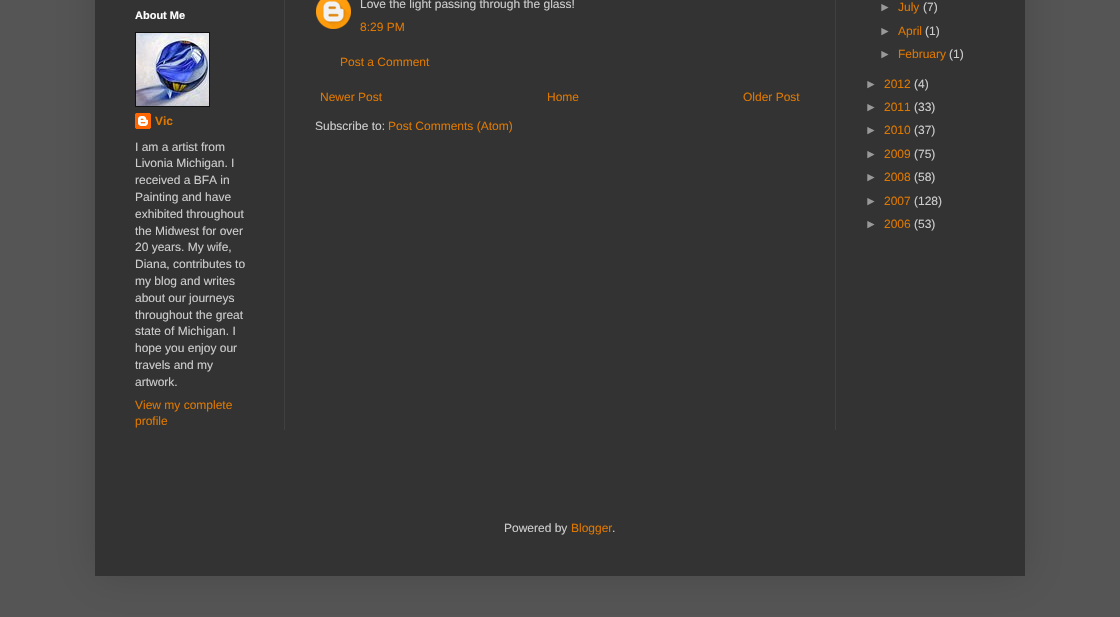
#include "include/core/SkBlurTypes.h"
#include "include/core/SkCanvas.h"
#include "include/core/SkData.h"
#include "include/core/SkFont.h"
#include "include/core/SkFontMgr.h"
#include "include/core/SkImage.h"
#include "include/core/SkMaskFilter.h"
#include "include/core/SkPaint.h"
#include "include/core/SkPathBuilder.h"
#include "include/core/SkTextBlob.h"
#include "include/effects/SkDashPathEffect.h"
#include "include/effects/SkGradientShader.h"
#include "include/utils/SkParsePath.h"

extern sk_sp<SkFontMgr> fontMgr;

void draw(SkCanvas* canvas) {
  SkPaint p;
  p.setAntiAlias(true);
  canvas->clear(SkColorSetRGB(85, 85, 85));
  p.setColor(SkColorSetARGB(38, 0, 0, 0));
  p.setMaskFilter(SkMaskFilter::MakeBlur(kNormal_SkBlurStyle, 20));
  canvas->drawRect(SkRect::MakeLTRB(95, -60, 1025, 576), p);
  p.setMaskFilter(nullptr);
  p.setColor(SkColorSetRGB(51, 51, 51));
  canvas->drawRect(SkRect::MakeLTRB(95, 0, 1025, 576), p);
  p.setColor(SkColorSetRGB(17, 17, 17));
  canvas->drawRect(SkRect::MakeLTRB(135, 32, 210, 107), p);
  canvas->drawImageRect(SkImages::DeferredFromEncodedData(SkData::MakeFromFileName("images/1.png")), SkRect::MakeLTRB(136, 33, 209, 106), SkSamplingOptions());
  canvas->drawImageRect(SkImages::DeferredFromEncodedData(SkData::MakeFromFileName("images/2.png")), SkRect::MakeLTRB(135, 113, 151, 129), SkSamplingOptions());
  canvas->drawImageRect(SkImages::DeferredFromEncodedData(SkData::MakeFromFileName("images/3.png")), SkRect::MakeLTRB(316, 0, 351, 29), SkSamplingOptions());
  p.setColor(SkColorSetRGB(64, 64, 64));
  canvas->drawRect(SkRect::MakeLTRB(284, 0, 285, 430), p);
  canvas->drawRect(SkRect::MakeLTRB(835, 0, 836, 430), p);
  SkFont font1(fontMgr->matchFamilyStyle("Liberation Sans", SkFontStyle::Bold()), 11);
  font1.setSubpixel(true);
  p.setColor(SK_ColorWHITE);
  canvas->drawString("About Me", 135, 19, font1, p);
  SkFont font2(fontMgr->matchFamilyStyle("Liberation Sans", SkFontStyle::Bold()), 12);
  font2.setSubpixel(true);
  p.setColor(SkColorSetRGB(221, 119, 0));
  canvas->drawString("Vic", 155, 125, font2, p);
  SkFont font3(fontMgr->matchFamilyStyle("Liberation Sans", SkFontStyle::Normal()), 12);
  font3.setSubpixel(true);
  p.setColor(SkColorSetRGB(204, 204, 204));
  canvas->drawString("I am a artist from", 135, 151, font3, p);
  canvas->drawString("Livonia Michigan. I", 135, 167, font3, p);
  canvas->drawString("received a BFA in", 135, 184, font3, p);
  canvas->drawString("Painting and have", 135, 201, font3, p);
  canvas->drawString("exhibited throughout", 135, 218, font3, p);
  canvas->drawString("the Midwest for over", 135, 235, font3, p);
  canvas->drawString("20 years. My wife,", 135, 251, font3, p);
  canvas->drawString("Diana, contributes to", 135, 268, font3, p);
  canvas->drawString("my blog and writes", 135, 285, font3, p);
  canvas->drawString("about our journeys", 135, 302, font3, p);
  canvas->drawString("throughout the great", 135, 319, font3, p);
  canvas->drawString("state of Michigan. I", 135, 335, font3, p);
  canvas->drawString("hope you enjoy our", 135, 352, font3, p);
  canvas->drawString("travels and my", 135, 369, font3, p);
  canvas->drawString("artwork.", 135, 386, font3, p);
  p.setColor(SkColorSetRGB(221, 119, 0));
  canvas->drawString("View my complete", 135, 409, font3, p);
  canvas->drawString("profile", 135, 425, font3, p);
  p.setColor(SkColorSetRGB(204, 204, 204));
  canvas->drawString("Love the light passing through the glass!", 360, 8, font3, p);
  p.setColor(SkColorSetRGB(221, 119, 0));
  canvas->drawString("8:29 PM", 360, 31, font3, p);
  canvas->drawString("Post a Comment", 340, 66, font3, p);
  canvas->drawString("Newer Post", 320, 101, font3, p);
  canvas->drawString("Home", 547, 101, font3, p);
  canvas->drawString("Older Post", 743, 101, font3, p);
  p.setColor(SkColorSetRGB(204, 204, 204));
  canvas->drawString("Subscribe to:", 315, 130, font3, p);
  p.setColor(SkColorSetRGB(221, 119, 0));
  canvas->drawString("Post Comments (Atom)", 388, 130, font3, p);
  p.setColor(SkColorSetRGB(153, 153, 153));
  canvas->drawString("►", 879, 11, font3, p);
  p.setColor(SkColorSetRGB(221, 119, 0));
  canvas->drawString("July", 898, 11, font3, p);
  p.setColor(SkColorSetRGB(204, 204, 204));
  canvas->drawString("(7)", 923, 11, font3, p);
  p.setColor(SkColorSetRGB(153, 153, 153));
  canvas->drawString("►", 879, 35, font3, p);
  p.setColor(SkColorSetRGB(221, 119, 0));
  canvas->drawString("April", 898, 35, font3, p);
  p.setColor(SkColorSetRGB(204, 204, 204));
  canvas->drawString("(1)", 925, 35, font3, p);
  p.setColor(SkColorSetRGB(153, 153, 153));
  canvas->drawString("►", 879, 58, font3, p);
  p.setColor(SkColorSetRGB(221, 119, 0));
  canvas->drawString("February", 898, 58, font3, p);
  p.setColor(SkColorSetRGB(204, 204, 204));
  canvas->drawString("(1)", 949, 58, font3, p);
  p.setColor(SkColorSetRGB(153, 153, 153));
  canvas->drawString("►", 865, 88, font3, p);
  p.setColor(SkColorSetRGB(221, 119, 0));
  canvas->drawString("2012", 884, 88, font3, p);
  p.setColor(SkColorSetRGB(204, 204, 204));
  canvas->drawString("(4)", 914, 88, font3, p);
  p.setColor(SkColorSetRGB(153, 153, 153));
  canvas->drawString("►", 865, 111, font3, p);
  p.setColor(SkColorSetRGB(221, 119, 0));
  canvas->drawString("2011", 884, 111, font3, p);
  p.setColor(SkColorSetRGB(204, 204, 204));
  canvas->drawString("(33)", 914, 111, font3, p);
  p.setColor(SkColorSetRGB(153, 153, 153));
  canvas->drawString("►", 865, 134, font3, p);
  p.setColor(SkColorSetRGB(221, 119, 0));
  canvas->drawString("2010", 884, 134, font3, p);
  p.setColor(SkColorSetRGB(204, 204, 204));
  canvas->drawString("(37)", 914, 134, font3, p);
  p.setColor(SkColorSetRGB(153, 153, 153));
  canvas->drawString("►", 865, 158, font3, p);
  p.setColor(SkColorSetRGB(221, 119, 0));
  canvas->drawString("2009", 884, 158, font3, p);
  p.setColor(SkColorSetRGB(204, 204, 204));
  canvas->drawString("(75)", 914, 158, font3, p);
  p.setColor(SkColorSetRGB(153, 153, 153));
  canvas->drawString("►", 865, 181, font3, p);
  p.setColor(SkColorSetRGB(221, 119, 0));
  canvas->drawString("2008", 884, 181, font3, p);
  p.setColor(SkColorSetRGB(204, 204, 204));
  canvas->drawString("(58)", 914, 181, font3, p);
  p.setColor(SkColorSetRGB(153, 153, 153));
  canvas->drawString("►", 865, 205, font3, p);
  p.setColor(SkColorSetRGB(221, 119, 0));
  canvas->drawString("2007", 884, 205, font3, p);
  p.setColor(SkColorSetRGB(204, 204, 204));
  canvas->drawString("(128)", 914, 205, font3, p);
  p.setColor(SkColorSetRGB(153, 153, 153));
  canvas->drawString("►", 865, 228, font3, p);
  p.setColor(SkColorSetRGB(221, 119, 0));
  canvas->drawString("2006", 884, 228, font3, p);
  p.setColor(SkColorSetRGB(204, 204, 204));
  canvas->drawString("(53)", 914, 228, font3, p);
  canvas->drawString("Powered by", 504, 532, font3, p);
  p.setColor(SkColorSetRGB(221, 119, 0));
  canvas->drawString("Blogger", 571, 532, font3, p);
  p.setColor(SkColorSetRGB(204, 204, 204));
  canvas->drawString(".", 612, 532, font3, p);
}
